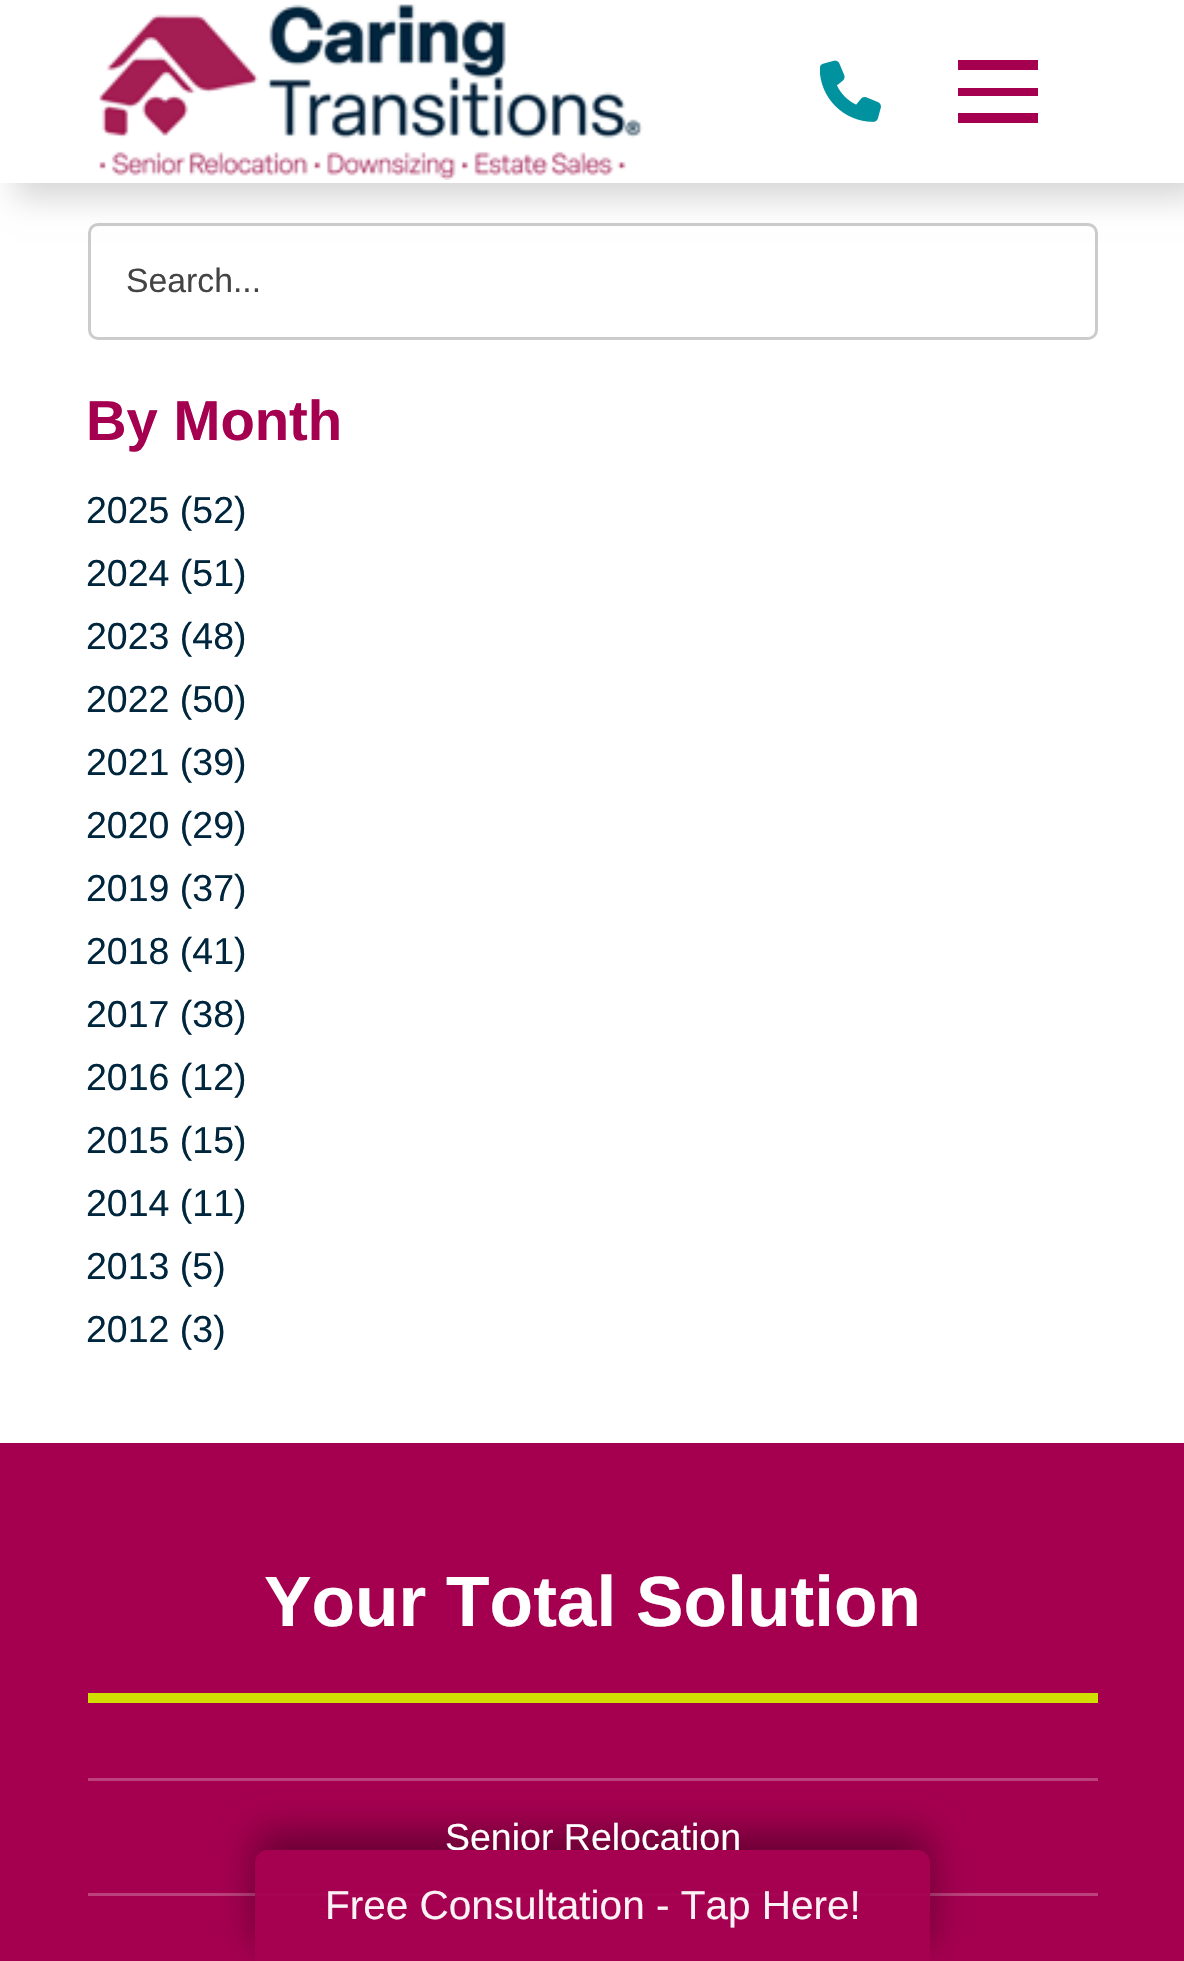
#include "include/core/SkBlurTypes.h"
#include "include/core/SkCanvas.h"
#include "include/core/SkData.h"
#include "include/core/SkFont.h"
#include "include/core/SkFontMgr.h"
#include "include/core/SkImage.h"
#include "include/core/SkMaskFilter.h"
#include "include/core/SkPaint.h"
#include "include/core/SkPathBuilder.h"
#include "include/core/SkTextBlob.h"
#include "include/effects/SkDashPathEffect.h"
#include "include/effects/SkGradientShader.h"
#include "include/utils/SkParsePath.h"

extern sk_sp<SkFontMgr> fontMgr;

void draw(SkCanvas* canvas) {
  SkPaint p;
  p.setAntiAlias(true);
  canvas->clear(SK_ColorWHITE);
  p.setStyle(SkPaint::kStroke_Style);
  p.setStrokeWidth(3);
  p.setColor(SkColorSetRGB(204, 204, 204));
  canvas->drawRoundRect(SkRect::MakeLTRB(89.5f, 224.5f, 1096.5f, 338.5f), 8.5f, 8.5f, p);
  p.setStyle(SkPaint::kFill_Style);
  p.setColor(SkColorSetARGB(41, 0, 0, 0));
  p.setMaskFilter(SkMaskFilter::MakeBlur(kNormal_SkBlurStyle, 15));
  canvas->drawRect(SkRect::MakeLTRB(15, 15, 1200, 198), p);
  p.setMaskFilter(nullptr);
  p.setColor(SK_ColorWHITE);
  canvas->drawRect(SkRect::MakeLTRB(0, 0, 1184, 183), p);
  canvas->drawImageRect(SkImages::DeferredFromEncodedData(SkData::MakeFromFileName("images/1.png")), SkRect::MakeLTRB(99, 4, 643, 180), SkSamplingOptions());
  canvas->drawImageRect(SkImages::DeferredFromEncodedData(SkData::MakeFromFileName("images/2.png")), SkRect::MakeLTRB(820, 60, 881, 122), SkSamplingOptions());
  p.setColor(SkColorSetRGB(165, 0, 80));
  canvas->drawRect(SkRect::MakeLTRB(958, 60, 1038, 70), p);
  canvas->drawRect(SkRect::MakeLTRB(958, 88, 1038, 96), p);
  canvas->drawRect(SkRect::MakeLTRB(958, 113, 1038, 123), p);
  canvas->drawRect(SkRect::MakeLTRB(0, 1443, 1184, 1961), p);
  p.setColor(SkColorSetRGB(208, 223, 0));
  canvas->drawRect(SkRect::MakeLTRB(88, 1693, 1098, 1703), p);
  p.setColor(SkColorSetRGB(188, 64, 124));
  canvas->drawRect(SkRect::MakeLTRB(88, 1778, 1098, 1781), p);
  canvas->drawRect(SkRect::MakeLTRB(88, 1893, 1098, 1896), p);
  canvas->save();
  canvas->clipPath(SkPathBuilder(SkPathFillType::kEvenOdd).moveTo(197, 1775).lineTo(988, 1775).lineTo(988, 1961).lineTo(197, 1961).close().moveTo(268, 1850).lineTo(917, 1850).cubicTo(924, 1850, 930, 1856, 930, 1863).lineTo(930, 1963).lineTo(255, 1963).lineTo(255, 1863).cubicTo(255, 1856, 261, 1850, 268, 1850).close().detach(), true);
  p.setColor(SkColorSetARGB(97, 0, 0, 0));
  p.setMaskFilter(SkMaskFilter::MakeBlur(kNormal_SkBlurStyle, 19));
  canvas->drawRoundRect(SkRect::MakeLTRB(255, 1833, 930, 1945), 13, 13, p);
  p.setMaskFilter(nullptr);
  canvas->restore();
  SkFont font1(fontMgr->matchFamilyStyle("Liberation Sans", SkFontStyle::Normal()), 33.75f);
  font1.setSubpixel(true);
  p.setColor(SkColorSetRGB(68, 68, 68));
  canvas->drawString("Search...", 126, 292, font1, p);
  SkFont font2(fontMgr->matchFamilyStyle("Liberation Sans", SkFontStyle::Bold()), 56.25f);
  font2.setSubpixel(true);
  p.setColor(SkColorSetRGB(165, 0, 80));
  canvas->drawString("By Month", 86, 440, font2, p);
  SkFont font3(fontMgr->matchFamilyStyle("Liberation Sans", SkFontStyle::Normal()), 37.5f);
  font3.setSubpixel(true);
  p.setColor(SkColorSetRGB(0, 38, 62));
  canvas->drawString("2025 (52)", 86, 523, font3, p);
  canvas->drawString("2024 (51)", 86, 586, font3, p);
  canvas->drawString("2023 (48)", 86, 649, font3, p);
  canvas->drawString("2022 (50)", 86, 712, font3, p);
  canvas->drawString("2021 (39)", 86, 775, font3, p);
  canvas->drawString("2020 (29)", 86, 838, font3, p);
  canvas->drawString("2019 (37)", 86, 901, font3, p);
  canvas->drawString("2018 (41)", 86, 964, font3, p);
  canvas->drawString("2017 (38)", 86, 1027, font3, p);
  canvas->drawString("2016 (12)", 86, 1090, font3, p);
  canvas->drawString("2015 (15)", 86, 1153, font3, p);
  canvas->drawString("2014 (11)", 86, 1216, font3, p);
  canvas->drawString("2013 (5)", 86, 1279, font3, p);
  canvas->drawString("2012 (3)", 86, 1342, font3, p);
  SkFont font4(fontMgr->matchFamilyStyle("Liberation Sans", SkFontStyle::Bold()), 71.25f);
  font4.setSubpixel(true);
  p.setColor(SK_ColorWHITE);
  canvas->drawString("Your Total Solution", 264, 1626, font4, p);
  canvas->drawString("Senior Relocation", 445, 1850, font3, p);
  p.setColor(SkColorSetARGB(242, 165, 0, 80));
  canvas->drawPath(SkPathBuilder().moveTo(268, 1850).lineTo(917, 1850).cubicTo(924, 1850, 930, 1856, 930, 1863).lineTo(930, 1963).lineTo(255, 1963).lineTo(255, 1863).cubicTo(255, 1856, 261, 1850, 268, 1850).close().detach(), p);
  SkFont font5(fontMgr->matchFamilyStyle("Liberation Sans", SkFontStyle::Normal()), 40.5f);
  font5.setSubpixel(true);
  p.setColor(SkColorSetRGB(251, 242, 246));
  canvas->drawString("Free Consultation - Tap Here!", 325, 1919, font5, p);
}
